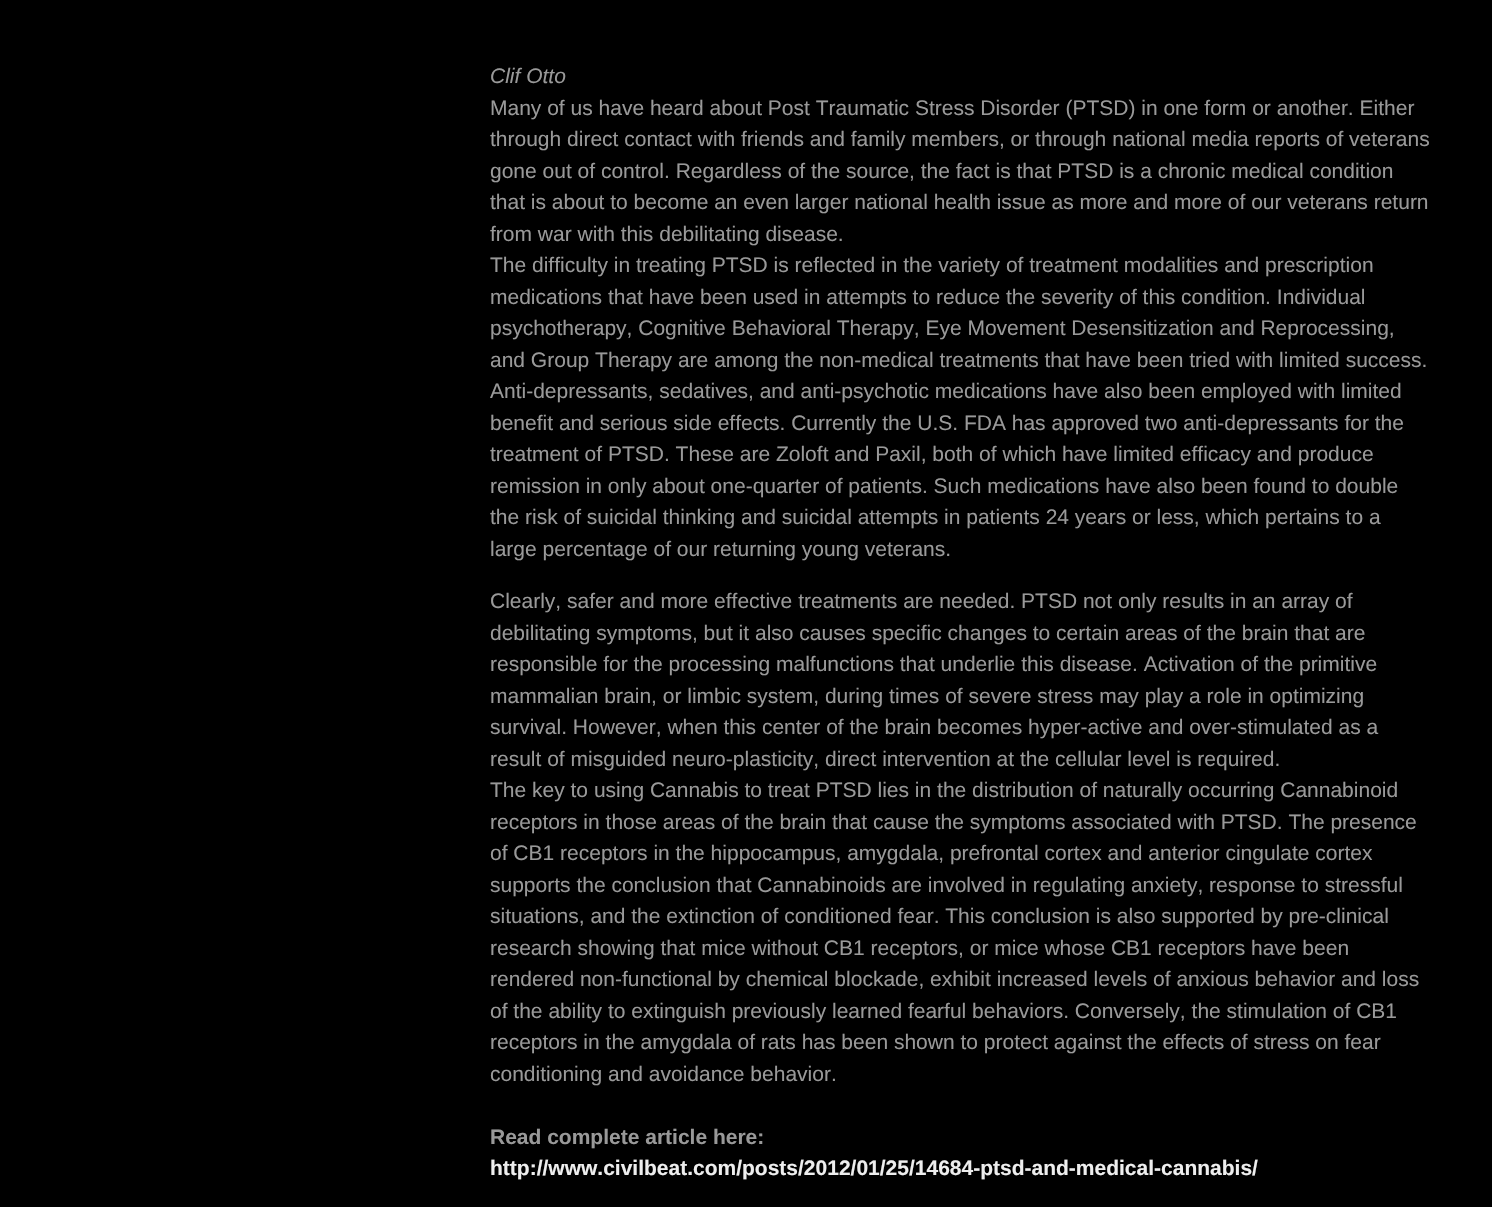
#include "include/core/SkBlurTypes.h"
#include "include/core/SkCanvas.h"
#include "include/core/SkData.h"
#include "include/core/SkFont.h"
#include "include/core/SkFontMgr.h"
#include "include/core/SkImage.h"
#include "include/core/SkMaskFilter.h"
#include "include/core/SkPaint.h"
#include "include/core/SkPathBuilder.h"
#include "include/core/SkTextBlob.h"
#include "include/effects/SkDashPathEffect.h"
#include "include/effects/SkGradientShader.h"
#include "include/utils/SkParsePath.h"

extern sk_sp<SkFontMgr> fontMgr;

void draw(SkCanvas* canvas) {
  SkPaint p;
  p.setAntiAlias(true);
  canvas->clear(SK_ColorBLACK);
  SkFont font1(fontMgr->matchFamilyStyle("Liberation Sans", SkFontStyle::Italic()), 21);
  font1.setSubpixel(true);
  p.setColor(SkColorSetRGB(153, 153, 153));
  canvas->drawString("Clif Otto", 490, 83, font1, p);
  SkFont font2(fontMgr->matchFamilyStyle("Liberation Sans", SkFontStyle::Normal()), 21);
  font2.setSubpixel(true);
  canvas->drawString("Many of us have heard about Post Traumatic Stress Disorder (PTSD) in one form or another. Either", 490, 115, font2, p);
  canvas->drawString("through direct contact with friends and family members, or through national media reports of veterans", 490, 146, font2, p);
  canvas->drawString("gone out of control. Regardless of the source, the fact is that PTSD is a chronic medical condition", 490, 178, font2, p);
  canvas->drawString("that is about to become an even larger national health issue as more and more of our veterans return", 490, 209, font2, p);
  canvas->drawString("from war with this debilitating disease.", 490, 241, font2, p);
  canvas->drawString("The difficulty in treating PTSD is reflected in the variety of treatment modalities and prescription", 490, 272, font2, p);
  canvas->drawString("medications that have been used in attempts to reduce the severity of this condition. Individual", 490, 304, font2, p);
  canvas->drawString("psychotherapy, Cognitive Behavioral Therapy, Eye Movement Desensitization and Reprocessing,", 490, 335, font2, p);
  canvas->drawString("and Group Therapy are among the non-medical treatments that have been tried with limited success.", 490, 367, font2, p);
  canvas->drawString("Anti-depressants, sedatives, and anti-psychotic medications have also been employed with limited", 490, 398, font2, p);
  canvas->drawString("benefit and serious side effects. Currently the U.S. FDA has approved two anti-depressants for the", 490, 430, font2, p);
  canvas->drawString("treatment of PTSD. These are Zoloft and Paxil, both of which have limited efficacy and produce", 490, 461, font2, p);
  canvas->drawString("remission in only about one-quarter of patients. Such medications have also been found to double", 490, 493, font2, p);
  canvas->drawString("the risk of suicidal thinking and suicidal attempts in patients 24 years or less, which pertains to a", 490, 524, font2, p);
  canvas->drawString("large percentage of our returning young veterans.", 490, 556, font2, p);
  canvas->drawString("Clearly, safer and more effective treatments are needed. PTSD not only results in an array of", 490, 608, font2, p);
  canvas->drawString("debilitating symptoms, but it also causes specific changes to certain areas of the brain that are", 490, 640, font2, p);
  canvas->drawString("responsible for the processing malfunctions that underlie this disease. Activation of the primitive", 490, 671, font2, p);
  canvas->drawString("mammalian brain, or limbic system, during times of severe stress may play a role in optimizing", 490, 703, font2, p);
  canvas->drawString("survival. However, when this center of the brain becomes hyper-active and over-stimulated as a", 490, 734, font2, p);
  canvas->drawString("result of misguided neuro-plasticity, direct intervention at the cellular level is required.", 490, 766, font2, p);
  canvas->drawString("The key to using Cannabis to treat PTSD lies in the distribution of naturally occurring Cannabinoid", 490, 797, font2, p);
  canvas->drawString("receptors in those areas of the brain that cause the symptoms associated with PTSD. The presence", 490, 829, font2, p);
  canvas->drawString("of CB1 receptors in the hippocampus, amygdala, prefrontal cortex and anterior cingulate cortex", 490, 860, font2, p);
  canvas->drawString("supports the conclusion that Cannabinoids are involved in regulating anxiety, response to stressful", 490, 892, font2, p);
  canvas->drawString("situations, and the extinction of conditioned fear. This conclusion is also supported by pre-clinical", 490, 923, font2, p);
  canvas->drawString("research showing that mice without CB1 receptors, or mice whose CB1 receptors have been", 490, 955, font2, p);
  canvas->drawString("rendered non-functional by chemical blockade, exhibit increased levels of anxious behavior and loss", 490, 986, font2, p);
  canvas->drawString("of the ability to extinguish previously learned fearful behaviors. Conversely, the stimulation of CB1", 490, 1018, font2, p);
  canvas->drawString("receptors in the amygdala of rats has been shown to protect against the effects of stress on fear", 490, 1049, font2, p);
  canvas->drawString("conditioning and avoidance behavior.", 490, 1081, font2, p);
  SkFont font3(fontMgr->matchFamilyStyle("Liberation Sans", SkFontStyle::Bold()), 21);
  font3.setSubpixel(true);
  canvas->drawString("Read complete article here:", 490, 1144, font3, p);
  p.setColor(SkColorSetRGB(238, 238, 238));
  canvas->drawString("http://www.civilbeat.com/posts/2012/01/25/14684-ptsd-and-medical-cannabis/", 490, 1175, font3, p);
}
